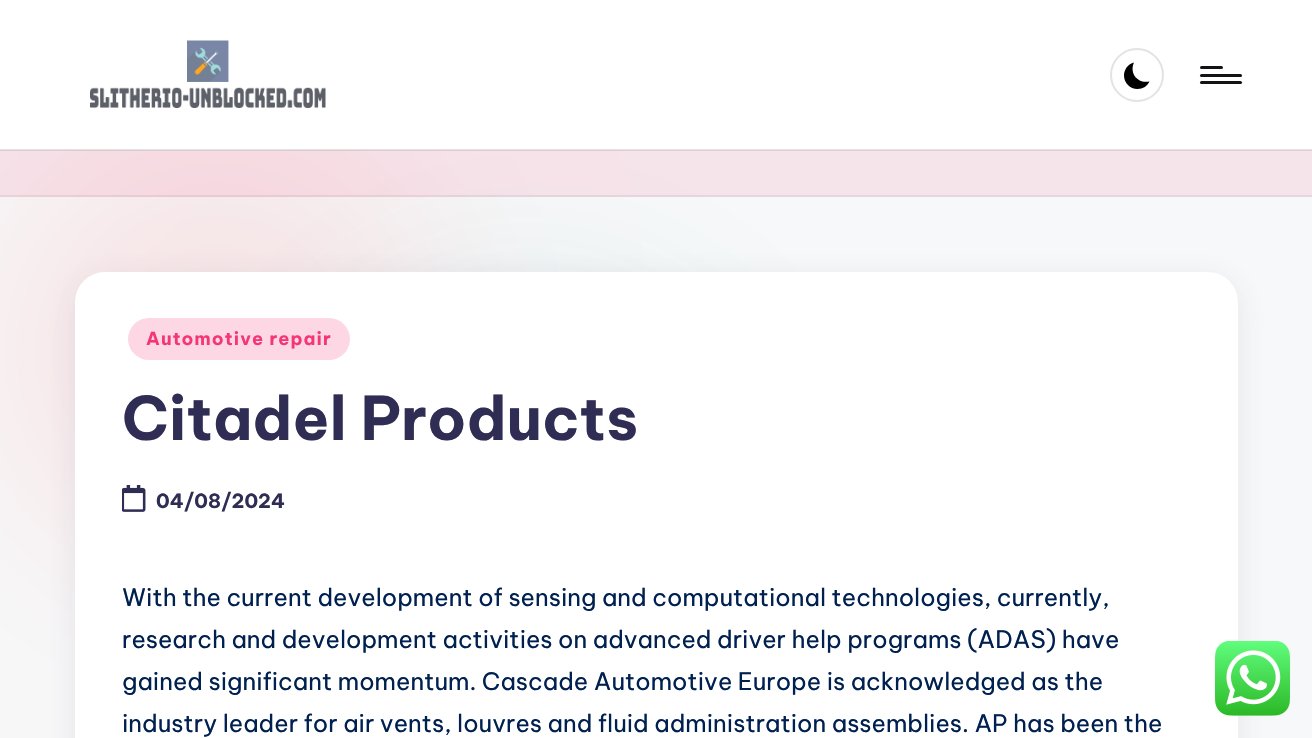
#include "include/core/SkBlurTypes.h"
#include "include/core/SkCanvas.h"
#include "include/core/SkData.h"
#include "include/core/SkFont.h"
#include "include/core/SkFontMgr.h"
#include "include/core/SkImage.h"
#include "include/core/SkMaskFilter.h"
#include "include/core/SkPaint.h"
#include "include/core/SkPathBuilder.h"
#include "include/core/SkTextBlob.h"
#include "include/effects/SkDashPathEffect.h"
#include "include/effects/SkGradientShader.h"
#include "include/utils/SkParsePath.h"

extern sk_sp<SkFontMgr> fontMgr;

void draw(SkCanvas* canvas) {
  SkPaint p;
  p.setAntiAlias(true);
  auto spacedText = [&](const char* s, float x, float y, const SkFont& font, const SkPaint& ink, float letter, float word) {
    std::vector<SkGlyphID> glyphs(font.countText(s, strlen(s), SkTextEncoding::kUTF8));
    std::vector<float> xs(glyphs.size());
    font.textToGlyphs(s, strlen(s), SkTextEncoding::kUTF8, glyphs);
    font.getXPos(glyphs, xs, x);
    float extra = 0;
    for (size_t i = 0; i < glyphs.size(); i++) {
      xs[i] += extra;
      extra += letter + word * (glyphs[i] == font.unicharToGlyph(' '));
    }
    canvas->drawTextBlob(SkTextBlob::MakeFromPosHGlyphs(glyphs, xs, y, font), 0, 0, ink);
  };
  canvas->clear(SkColorSetRGB(247, 248, 249));
  p.setColor(SkColorSetRGB(247, 227, 229));
  p.setMaskFilter(SkMaskFilter::MakeBlur(kNormal_SkBlurStyle, 96));
  canvas->drawRoundRect(SkRect::MakeLTRB(0, 135, 432, 567), 216, 216, p);
  p.setMaskFilter(nullptr);
  p.setColor(SkColorSetARGB(26, 4, 134, 139));
  p.setMaskFilter(SkMaskFilter::MakeBlur(kNormal_SkBlurStyle, 96));
  canvas->drawRoundRect(SkRect::MakeLTRB(312, 300, 744, 732), 216, 216, p);
  p.setMaskFilter(nullptr);
  p.setColor(SK_ColorWHITE);
  canvas->drawRect(SkRect::MakeLTRB(0, 0, 1312, 150), p);
  p.setColor(SkColorSetARGB(102, 185, 185, 185));
  canvas->drawRect(SkRect::MakeLTRB(0, 149, 1312, 151), p);
  canvas->drawImageRect(SkImages::DeferredFromEncodedData(SkData::MakeFromFileName("images/1.png")), SkRect::MakeLTRB(90, 40, 326, 108), SkSamplingOptions());
  p.setStyle(SkPaint::kStroke_Style);
  p.setStrokeWidth(2);
  p.setColor(SkColorSetRGB(227, 227, 227));
  canvas->drawCircle(1137, 75, 26, p);
  p.setStyle(SkPaint::kFill_Style);
  p.setColor(SK_ColorBLACK);
  canvas->drawPath(SkPathBuilder().moveTo(1149.5f, 81.5f).cubicTo(1138, 84, 1129, 73.5f, 1134, 62.5f).cubicTo(1128, 64, 1124, 69.5f, 1124, 75.5f).cubicTo(1124, 83, 1130, 89, 1137.5f, 89).cubicTo(1143, 89, 1147.5f, 86, 1149.5f, 81.5f).close().detach(), p);
  p.setColor(SkColorSetRGB(19, 19, 21));
  canvas->drawRoundRect(SkRect::MakeLTRB(1200, 74, 1242, 77), 1.5f, 1.5f, p);
  canvas->drawRoundRect(SkRect::MakeLTRB(1200, 66, 1223, 69), 1.5f, 1.5f, p);
  canvas->drawRoundRect(SkRect::MakeLTRB(1200, 81, 1242, 84), 1.5f, 1.5f, p);
  p.setColor(SkColorSetARGB(26, 244, 54, 118));
  canvas->drawRect(SkRect::MakeLTRB(0, 150, 1312, 197), p);
  p.setColor(SkColorSetARGB(15, 0, 0, 0));
  canvas->drawRect(SkRect::MakeLTRB(0, 195, 1312, 197), p);
  p.setColor(SkColorSetARGB(26, 69, 67, 96));
  p.setMaskFilter(SkMaskFilter::MakeBlur(kNormal_SkBlurStyle, 15));
  canvas->drawRoundRect(SkRect::MakeLTRB(75, 279, 1238, 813), 30, 30, p);
  p.setMaskFilter(nullptr);
  p.setColor(SK_ColorWHITE);
  canvas->drawRoundRect(SkRect::MakeLTRB(75, 272, 1238, 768), 30, 30, p);
  p.setColor(SkColorSetRGB(253, 215, 228));
  canvas->drawRoundRect(SkRect::MakeLTRB(128, 318, 350, 360), 21, 21, p);
  canvas->drawImageRect(SkImages::DeferredFromEncodedData(SkData::MakeFromFileName("images/2.png")), SkRect::MakeLTRB(122, 485, 146, 512), SkSamplingOptions());
  canvas->drawImageRect(SkImages::DeferredFromEncodedData(SkData::MakeFromFileName("images/3.png")), SkRect::MakeLTRB(1215, 641, 1290, 716), SkSamplingOptions());
  SkFont font1(fontMgr->matchFamilyStyle("Be Vietnam Pro", SkFontStyle::Bold()), 18);
  font1.setSubpixel(true);
  p.setColor(SkColorSetRGB(244, 54, 118));
  spacedText("Automotive repair", 146, 345, font1, p, 1.1f, 0);
  SkFont font2(fontMgr->matchFamilyStyle("Be Vietnam Pro", SkFontStyle::Bold()), 60);
  font2.setSubpixel(true);
  p.setColor(SkColorSetRGB(48, 45, 85));
  canvas->drawString("Citadel Products", 122, 440, font2, p);
  SkFont font3(fontMgr->matchFamilyStyle("Be Vietnam Pro", SkFontStyle::Bold()), 19.5f);
  font3.setSubpixel(true);
  canvas->drawString("04/08/2024", 156, 508, font3, p);
  SkFont font4(fontMgr->matchFamilyStyle("Be Vietnam Pro", SkFontStyle::Normal()), 24);
  font4.setSubpixel(true);
  p.setColor(SkColorSetRGB(0, 32, 80));
  canvas->drawString("With the current development of sensing and computational technologies, currently,", 122, 606, font4, p);
  canvas->drawString("research and development activities on advanced driver help programs (ADAS) have", 122, 648, font4, p);
  canvas->drawString("gained significant momentum. Cascade Automotive Europe is acknowledged as the", 122, 690, font4, p);
  canvas->drawString("industry leader for air vents, louvres and fluid administration assemblies. AP has been the", 122, 732, font4, p);
}
